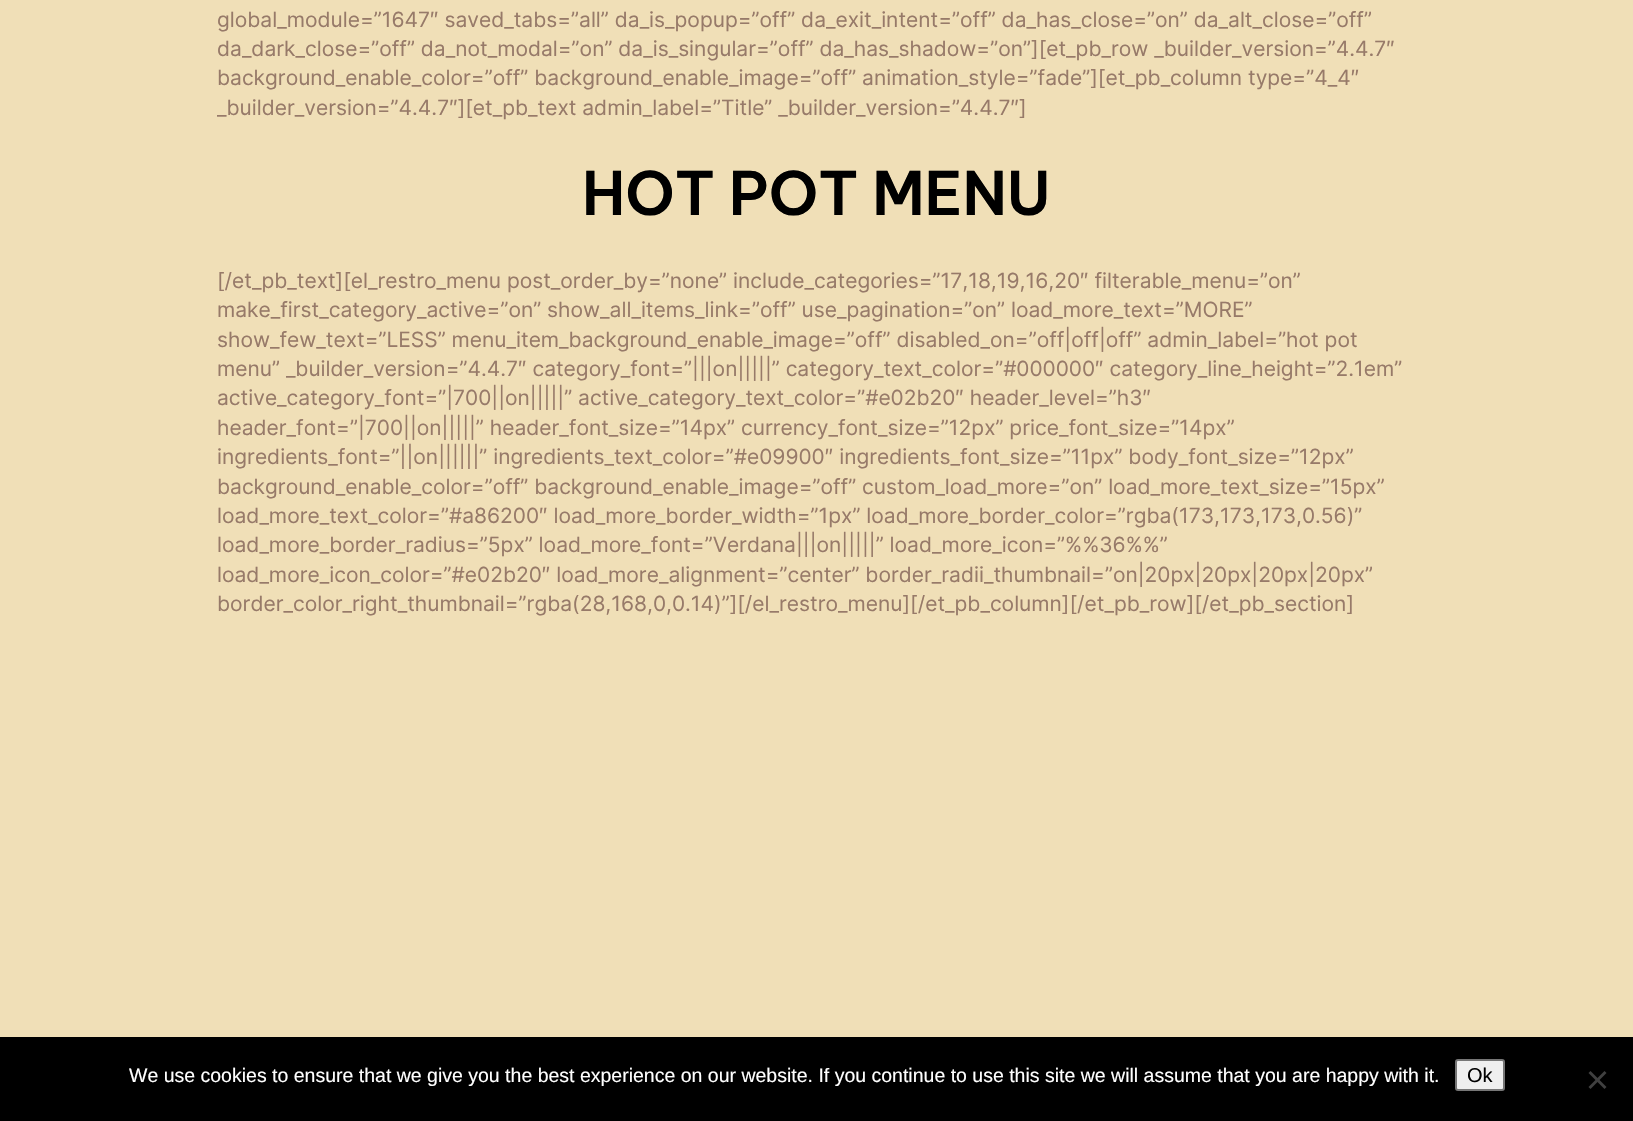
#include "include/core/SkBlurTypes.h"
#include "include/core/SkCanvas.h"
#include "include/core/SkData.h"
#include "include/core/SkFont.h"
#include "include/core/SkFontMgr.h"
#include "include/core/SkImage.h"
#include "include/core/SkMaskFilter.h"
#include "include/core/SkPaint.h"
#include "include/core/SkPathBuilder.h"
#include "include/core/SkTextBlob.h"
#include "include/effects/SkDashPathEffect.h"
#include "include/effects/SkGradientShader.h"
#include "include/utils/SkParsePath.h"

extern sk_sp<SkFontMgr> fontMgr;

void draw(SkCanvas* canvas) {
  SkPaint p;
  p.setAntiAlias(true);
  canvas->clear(SkColorSetRGB(240, 223, 183));
  p.setColor(SK_ColorBLACK);
  canvas->drawRect(SkRect::MakeLTRB(0, 1037, 1633, 1121), p);
  p.setColor(SkColorSetRGB(239, 239, 239));
  canvas->drawRoundRect(SkRect::MakeLTRB(1456, 1060, 1504, 1090), 2, 2, p);
  p.setStyle(SkPaint::kStroke_Style);
  p.setStrokeWidth(2);
  p.setColor(SkColorSetRGB(118, 118, 118));
  canvas->drawRoundRect(SkRect::MakeLTRB(1456, 1060, 1504, 1090), 2, 2, p);
  p.setStyle(SkPaint::kFill_Style);
  p.setColor(SkColorSetRGB(64, 64, 64));
  canvas->drawPath(SkPathBuilder().moveTo(1604.5f, 1071).lineTo(1606.5f, 1073).lineTo(1590.5f, 1089).lineTo(1588.5f, 1087).close().detach(), p);
  canvas->drawPath(SkPathBuilder().moveTo(1588.5f, 1073).lineTo(1590.5f, 1071).lineTo(1606.5f, 1087).lineTo(1604.5f, 1089).close().detach(), p);
  SkFont font1(fontMgr->matchFamilyStyle("Inter", SkFontStyle::Normal()), 21);
  font1.setSubpixel(true);
  p.setColor(SkColorSetRGB(151, 122, 105));
  canvas->drawString("global_module=”1647″ saved_tabs=”all” da_is_popup=”off” da_exit_intent=”off” da_has_close=”on” da_alt_close=”off”", 217, 27, font1, p);
  canvas->drawString("da_dark_close=”off” da_not_modal=”on” da_is_singular=”off” da_has_shadow=”on”][et_pb_row _builder_version=”4.4.7″", 217, 56, font1, p);
  canvas->drawString("background_enable_color=”off” background_enable_image=”off” animation_style=”fade”][et_pb_column type=”4_4″", 217, 85, font1, p);
  canvas->drawString("_builder_version=”4.4.7″][et_pb_text admin_label=”Title” _builder_version=”4.4.7″]", 217, 115, font1, p);
  SkFont font2(fontMgr->matchFamilyStyle("Be Vietnam Pro", SkFontStyle(600, SkFontStyle::kNormal_Width, SkFontStyle::kUpright_Slant)), 59.75f);
  font2.setSubpixel(true);
  p.setColor(SK_ColorBLACK);
  canvas->drawString("HOT POT MENU", 582, 215, font2, p);
  p.setColor(SkColorSetRGB(151, 122, 105));
  canvas->drawString("[/et_pb_text][el_restro_menu post_order_by=”none” include_categories=”17,18,19,16,20″ filterable_menu=”on”", 217, 288, font1, p);
  canvas->drawString("make_first_category_active=”on” show_all_items_link=”off” use_pagination=”on” load_more_text=”MORE”", 217, 317, font1, p);
  canvas->drawString("show_few_text=”LESS” menu_item_background_enable_image=”off” disabled_on=”off|off|off” admin_label=”hot pot", 217, 347, font1, p);
  canvas->drawString("menu” _builder_version=”4.4.7″ category_font=”|||on|||||” category_text_color=”#000000″ category_line_height=”2.1em”", 217, 376, font1, p);
  canvas->drawString("active_category_font=”|700||on|||||” active_category_text_color=”#e02b20″ header_level=”h3″", 217, 405, font1, p);
  canvas->drawString("header_font=”|700||on|||||” header_font_size=”14px” currency_font_size=”12px” price_font_size=”14px”", 217, 435, font1, p);
  canvas->drawString("ingredients_font=”||on||||||” ingredients_text_color=”#e09900″ ingredients_font_size=”11px” body_font_size=”12px”", 217, 464, font1, p);
  canvas->drawString("background_enable_color=”off” background_enable_image=”off” custom_load_more=”on” load_more_text_size=”15px”", 217, 494, font1, p);
  canvas->drawString("load_more_text_color=”#a86200″ load_more_border_width=”1px” load_more_border_color=”rgba(173,173,173,0.56)”", 217, 523, font1, p);
  canvas->drawString("load_more_border_radius=”5px” load_more_font=”Verdana|||on|||||” load_more_icon=”%%36%%”", 217, 552, font1, p);
  canvas->drawString("load_more_icon_color=”#e02b20″ load_more_alignment=”center” border_radii_thumbnail=”on|20px|20px|20px|20px”", 217, 582, font1, p);
  canvas->drawString("border_color_right_thumbnail=”rgba(28,168,0,0.14)”][/el_restro_menu][/et_pb_column][/et_pb_row][/et_pb_section]", 217, 611, font1, p);
  SkFont font3(fontMgr->matchFamilyStyle("Liberation Sans", SkFontStyle::Normal()), 19.5f);
  font3.setSubpixel(true);
  p.setColor(SK_ColorWHITE);
  canvas->drawString("We use cookies to ensure that we give you the best experience on our website. If you continue to use this site we will assume that you are happy with it.", 129, 1082, font3, p);
  SkFont font4(fontMgr->matchFamilyStyle("Liberation Sans", SkFontStyle::Normal()), 20);
  font4.setSubpixel(true);
  p.setColor(SK_ColorBLACK);
  canvas->drawString("Ok", 1467, 1082, font4, p);
}
